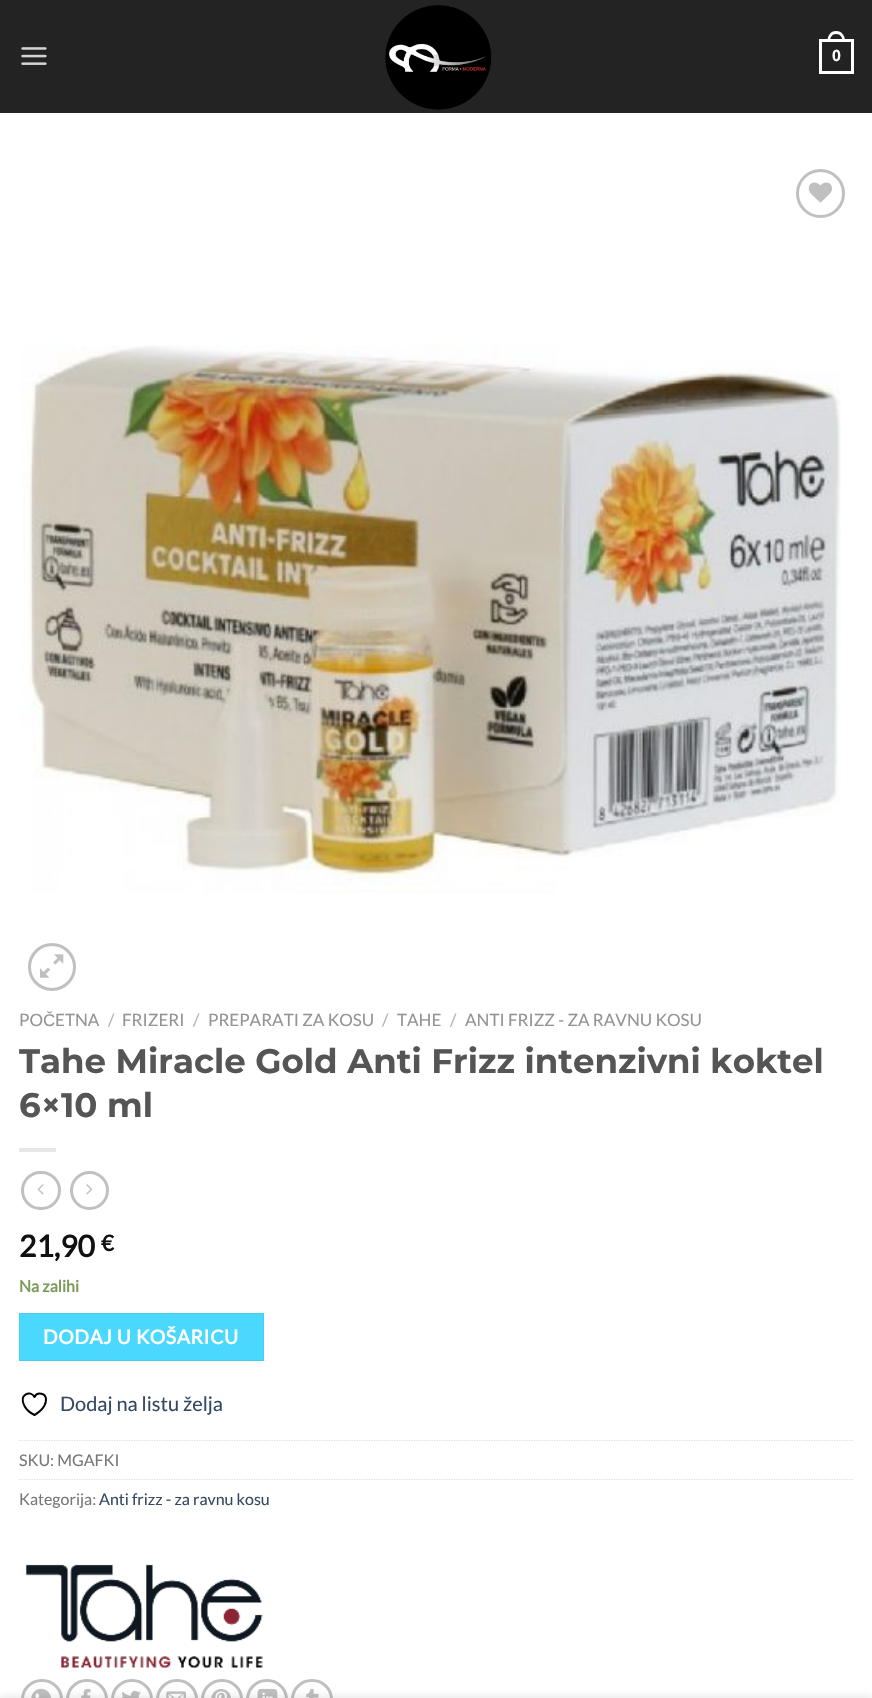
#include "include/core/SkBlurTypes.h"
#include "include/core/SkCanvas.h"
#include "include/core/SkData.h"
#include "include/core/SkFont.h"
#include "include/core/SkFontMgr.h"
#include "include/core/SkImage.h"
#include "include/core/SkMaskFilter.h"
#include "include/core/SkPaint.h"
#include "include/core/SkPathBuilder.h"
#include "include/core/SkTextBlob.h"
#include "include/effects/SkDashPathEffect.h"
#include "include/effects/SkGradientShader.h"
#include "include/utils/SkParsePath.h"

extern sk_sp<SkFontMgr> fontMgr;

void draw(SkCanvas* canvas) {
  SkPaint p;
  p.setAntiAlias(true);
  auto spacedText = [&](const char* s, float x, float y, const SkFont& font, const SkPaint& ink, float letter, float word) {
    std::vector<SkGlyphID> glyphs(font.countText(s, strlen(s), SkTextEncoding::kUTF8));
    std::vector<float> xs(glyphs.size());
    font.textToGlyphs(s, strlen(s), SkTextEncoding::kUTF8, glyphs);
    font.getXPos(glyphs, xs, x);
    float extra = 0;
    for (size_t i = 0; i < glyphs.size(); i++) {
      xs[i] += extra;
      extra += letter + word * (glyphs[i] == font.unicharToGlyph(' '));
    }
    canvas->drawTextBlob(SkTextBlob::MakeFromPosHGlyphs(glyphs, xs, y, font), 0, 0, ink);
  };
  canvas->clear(SK_ColorWHITE);
  p.setColor(SkColorSetRGB(35, 35, 35));
  canvas->drawRect(SkRect::MakeLTRB(0, 0, 872, 113), p);
  canvas->drawImageRect(SkImages::DeferredFromEncodedData(SkData::MakeFromFileName("images/1.png")), SkRect::MakeLTRB(21, 47, 47, 65), SkSamplingOptions());
  canvas->drawImageRect(SkImages::DeferredFromEncodedData(SkData::MakeFromFileName("images/2.png")), SkRect::MakeLTRB(385, 5, 492, 110), SkSamplingOptions());
  p.setStyle(SkPaint::kStroke_Style);
  p.setStrokeWidth(3);
  p.setColor(SK_ColorWHITE);
  canvas->drawRect(SkRect::MakeLTRB(820.5f, 40.5f, 852.5f, 72.5f), p);
  p.setStyle(SkPaint::kFill_Style);
  canvas->drawPath(SkPathBuilder(SkPathFillType::kEvenOdd).moveTo(836, 31).cubicTo(842, 31, 845, 36, 845, 41).lineTo(827.5f, 41).cubicTo(827.5f, 36, 830.5f, 31, 836, 31).close().moveTo(836, 34).cubicTo(840.5f, 34, 842.5f, 37.5f, 842.5f, 41).lineTo(830, 41).cubicTo(830, 37.5f, 832, 34, 836, 34).close().detach(), p);
  p.setStyle(SkPaint::kStroke_Style);
  p.setColor(SkColorSetRGB(192, 192, 192));
  canvas->drawCircle(820.5f, 193.5f, 23, p);
  canvas->drawImageRect(SkImages::DeferredFromEncodedData(SkData::MakeFromFileName("images/3.png")), SkRect::MakeLTRB(808, 182, 832, 203), SkSamplingOptions());
  canvas->drawImageRect(SkImages::DeferredFromEncodedData(SkData::MakeFromFileName("images/4.png")), SkRect::MakeLTRB(21, 345, 841, 893), SkSamplingOptions());
  canvas->drawCircle(52, 967, 22.5f, p);
  canvas->drawImageRect(SkImages::DeferredFromEncodedData(SkData::MakeFromFileName("images/5.png")), SkRect::MakeLTRB(40, 954, 64, 978), SkSamplingOptions());
  p.setStyle(SkPaint::kFill_Style);
  p.setColor(SkColorSetRGB(230, 230, 230));
  canvas->drawRect(SkRect::MakeLTRB(19, 1148, 56, 1152), p);
  p.setStyle(SkPaint::kStroke_Style);
  p.setColor(SkColorSetRGB(192, 192, 192));
  canvas->drawRoundRect(SkRect::MakeLTRB(22.5f, 1172.5f, 59.5f, 1208.5f), 18, 18, p);
  canvas->drawImageRect(SkImages::DeferredFromEncodedData(SkData::MakeFromFileName("images/6.png")), SkRect::MakeLTRB(37, 1184, 44, 1195), SkSamplingOptions());
  canvas->drawCircle(89.5f, 1190.5f, 18, p);
  canvas->drawImageRect(SkImages::DeferredFromEncodedData(SkData::MakeFromFileName("images/7.png")), SkRect::MakeLTRB(86, 1184, 93, 1195), SkSamplingOptions());
  p.setStyle(SkPaint::kFill_Style);
  p.setColor(SkColorSetRGB(74, 216, 255));
  canvas->drawRect(SkRect::MakeLTRB(19.5f, 1313.5f, 263.5f, 1360.5f), p);
  p.setStyle(SkPaint::kStroke_Style);
  p.setStrokeWidth(1);
  p.setColor(SkColorSetRGB(70, 205, 242));
  canvas->drawRect(SkRect::MakeLTRB(19.5f, 1313.5f, 263.5f, 1360.5f), p);
  p.setStrokeWidth(2);
  p.setStrokeCap(SkPaint::kRound_Cap);
  p.setStrokeJoin(SkPaint::kRound_Join);
  p.setColor(SK_ColorBLACK);
  canvas->drawPath(SkPathBuilder().moveTo(46, 1399.5f).cubicTo(46, 1393, 37, 1391.5f, 34.5f, 1397).cubicTo(31, 1389.5f, 18, 1394.5f, 24.5f, 1406).cubicTo(26.5f, 1410, 30.5f, 1413, 34.5f, 1415).cubicTo(34.5f, 1415, 46, 1409, 46, 1399.5f).close().detach(), p);
  p.setStrokeWidth(1.2f);
  p.setStrokeCap(SkPaint::kButt_Cap);
  p.setStrokeJoin(SkPaint::kMiter_Join);
  p.setColor(SkColorSetRGB(221, 221, 221));
  p.setPathEffect(SkDashPathEffect::Make({{1.25f, 1.25f}}, 0));
  canvas->drawPath(SkPathBuilder().moveTo(19, 1440.5f).lineTo(854, 1440.5f).detach(), p);
  p.setPathEffect(nullptr);
  p.setPathEffect(SkDashPathEffect::Make({{1.25f, 1.25f}}, 0));
  canvas->drawPath(SkPathBuilder().moveTo(19, 1479.5f).lineTo(854, 1479.5f).detach(), p);
  p.setPathEffect(nullptr);
  canvas->drawImageRect(SkImages::DeferredFromEncodedData(SkData::MakeFromFileName("images/8.png")), SkRect::MakeLTRB(25, 1564, 263, 1669), SkSamplingOptions());
  p.setStrokeWidth(3);
  p.setColor(SkColorSetRGB(192, 192, 192));
  canvas->drawRoundRect(SkRect::MakeLTRB(22.5f, 1680.5f, 61.5f, 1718.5f), 19, 19, p);
  canvas->drawImageRect(SkImages::DeferredFromEncodedData(SkData::MakeFromFileName("images/9.png")), SkRect::MakeLTRB(31, 1688, 51, 1698), SkSamplingOptions());
  canvas->drawRoundRect(SkRect::MakeLTRB(67.5f, 1680.5f, 106.5f, 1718.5f), 19, 19, p);
  canvas->drawImageRect(SkImages::DeferredFromEncodedData(SkData::MakeFromFileName("images/10.png")), SkRect::MakeLTRB(81, 1688, 91, 1698), SkSamplingOptions());
  canvas->drawRoundRect(SkRect::MakeLTRB(112.5f, 1680.5f, 151.5f, 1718.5f), 19, 19, p);
  canvas->drawImageRect(SkImages::DeferredFromEncodedData(SkData::MakeFromFileName("images/11.png")), SkRect::MakeLTRB(122, 1690, 141, 1698), SkSamplingOptions());
  canvas->drawRoundRect(SkRect::MakeLTRB(157.5f, 1680.5f, 196.5f, 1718.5f), 19, 19, p);
  canvas->drawImageRect(SkImages::DeferredFromEncodedData(SkData::MakeFromFileName("images/12.png")), SkRect::MakeLTRB(166, 1691, 186, 1698), SkSamplingOptions());
  canvas->drawRoundRect(SkRect::MakeLTRB(202.5f, 1680.5f, 241.5f, 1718.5f), 19, 19, p);
  canvas->drawImageRect(SkImages::DeferredFromEncodedData(SkData::MakeFromFileName("images/13.png")), SkRect::MakeLTRB(211, 1689, 231, 1698), SkSamplingOptions());
  canvas->drawRoundRect(SkRect::MakeLTRB(247.5f, 1680.5f, 286.5f, 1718.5f), 19, 19, p);
  canvas->drawImageRect(SkImages::DeferredFromEncodedData(SkData::MakeFromFileName("images/14.png")), SkRect::MakeLTRB(257, 1688, 278, 1698), SkSamplingOptions());
  canvas->drawRoundRect(SkRect::MakeLTRB(292.5f, 1680.5f, 331.5f, 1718.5f), 19, 19, p);
  canvas->drawImageRect(SkImages::DeferredFromEncodedData(SkData::MakeFromFileName("images/15.png")), SkRect::MakeLTRB(306, 1688, 319, 1698), SkSamplingOptions());
  p.setStyle(SkPaint::kFill_Style);
  p.setColor(SkColorSetARGB(36, 0, 0, 0));
  p.setMaskFilter(SkMaskFilter::MakeBlur(kNormal_SkBlurStyle, 5.5f));
  canvas->drawRect(SkRect::MakeLTRB(0, 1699, 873, 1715), p);
  p.setMaskFilter(nullptr);
  SkFont font1(fontMgr->matchFamilyStyle("Liberation Sans", SkFontStyle::Bold()), 16);
  font1.setSubpixel(true);
  p.setColor(SK_ColorWHITE);
  canvas->drawString("0", 832, 61, font1, p);
  SkFont font2(fontMgr->matchFamilyStyle("Lato", SkFontStyle::Normal()), 17);
  font2.setSubpixel(true);
  p.setColor(SkColorSetRGB(148, 148, 148));
  canvas->drawString("PO", 19, 1026, font2, p);
  SkFont font3(fontMgr->matchFamilyStyle("Liberation Sans", SkFontStyle::Normal()), 17);
  font3.setSubpixel(true);
  canvas->drawString("Č", 43, 1026, font3, p);
  canvas->drawString("ETNA", 55, 1026, font2, p);
  p.setColor(SkColorSetRGB(178, 178, 178));
  canvas->drawString("/", 108, 1026, font2, p);
  p.setColor(SkColorSetRGB(148, 148, 148));
  canvas->drawString("FRIZERI", 122, 1026, font2, p);
  p.setColor(SkColorSetRGB(178, 178, 178));
  canvas->drawString("/", 193, 1026, font2, p);
  p.setColor(SkColorSetRGB(148, 148, 148));
  canvas->drawString("PREPARATI ZA KOSU", 208, 1026, font2, p);
  p.setColor(SkColorSetRGB(178, 178, 178));
  canvas->drawString("/", 382, 1026, font2, p);
  p.setColor(SkColorSetRGB(148, 148, 148));
  canvas->drawString("TAHE", 397, 1026, font2, p);
  p.setColor(SkColorSetRGB(178, 178, 178));
  canvas->drawString("/", 450, 1026, font2, p);
  p.setColor(SkColorSetRGB(148, 148, 148));
  canvas->drawString("ANTI FRIZZ - ZA RAVNU KOSU", 465, 1026, font2, p);
  SkFont font4(fontMgr->matchFamilyStyle("Montserrat", SkFontStyle::Bold()), 34);
  font4.setSubpixel(true);
  p.setColor(SkColorSetRGB(85, 85, 85));
  canvas->drawString("Tahe Miracle Gold Anti Frizz intenzivni koktel", 19, 1073, font4, p);
  canvas->drawString("6×10 ml", 19, 1117, font4, p);
  SkFont font5(fontMgr->matchFamilyStyle("Lato", SkFontStyle::Bold()), 30);
  font5.setSubpixel(true);
  p.setColor(SkColorSetRGB(17, 17, 17));
  canvas->drawString("21,90", 19, 1257, font5, p);
  SkFont font6(fontMgr->matchFamilyStyle("Lato", SkFontStyle::Bold()), 22);
  font6.setSubpixel(true);
  canvas->drawString("€", 101, 1251, font6, p);
  SkFont font7(fontMgr->matchFamilyStyle("Lato", SkFontStyle::Bold()), 16);
  font7.setSubpixel(true);
  p.setColor(SkColorSetRGB(122, 156, 89));
  canvas->drawString("Na zalihi", 19, 1292, font7, p);
  SkFont font8(fontMgr->matchFamilyStyle("Lato", SkFontStyle::Bold()), 19.4f);
  font8.setSubpixel(true);
  p.setColor(SK_ColorWHITE);
  spacedText("DODAJ U KOŠARICU", 43, 1344, font8, p, 0.6f, 0);
  SkFont font9(fontMgr->matchFamilyStyle("Lato", SkFontStyle::Normal()), 20);
  font9.setSubpixel(true);
  p.setColor(SkColorSetRGB(51, 72, 98));
  canvas->drawString("Dodaj na listu želja", 60, 1411, font9, p);
  SkFont font10(fontMgr->matchFamilyStyle("Lato", SkFontStyle::Normal()), 16);
  font10.setSubpixel(true);
  p.setColor(SkColorSetRGB(119, 119, 119));
  canvas->drawString("SKU: MGAFKI", 19, 1466, font10, p);
  canvas->drawString("Kategorija:", 19, 1505, font10, p);
  p.setColor(SkColorSetRGB(51, 72, 98));
  canvas->drawString("Anti frizz - za ravnu kosu", 99, 1505, font10, p);
}
